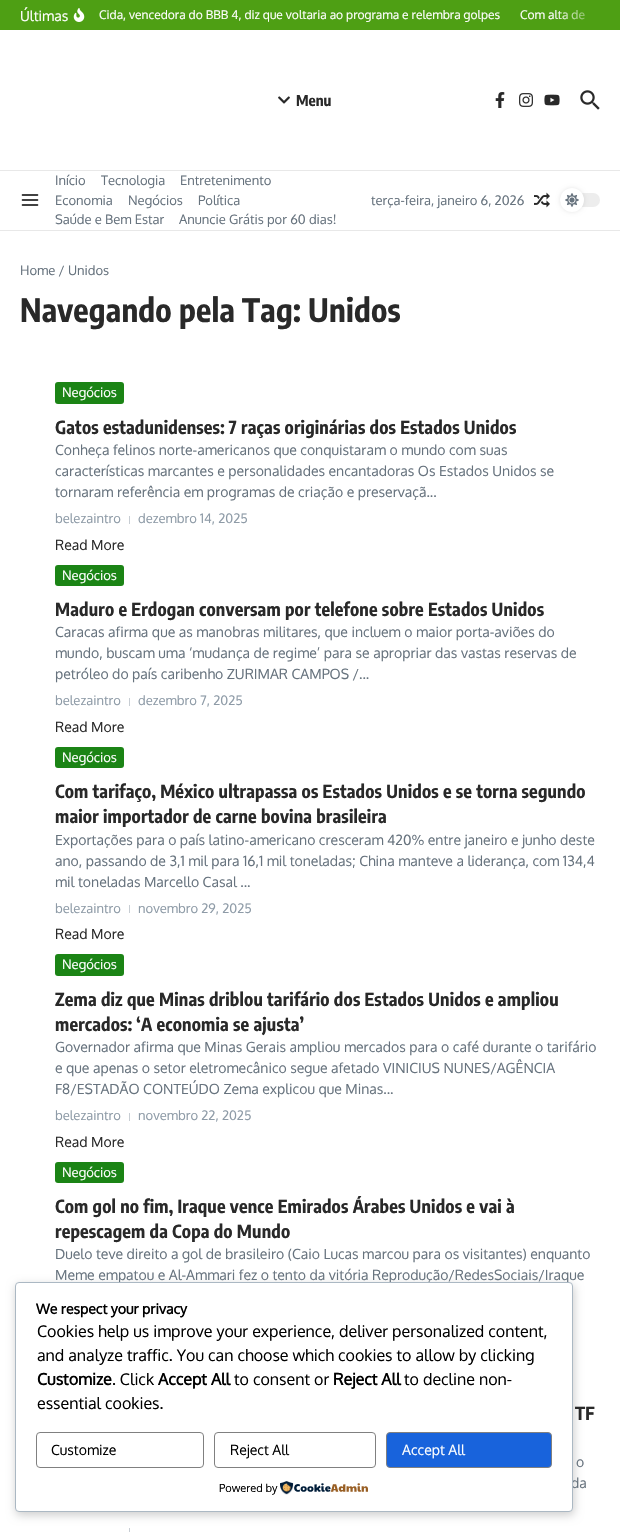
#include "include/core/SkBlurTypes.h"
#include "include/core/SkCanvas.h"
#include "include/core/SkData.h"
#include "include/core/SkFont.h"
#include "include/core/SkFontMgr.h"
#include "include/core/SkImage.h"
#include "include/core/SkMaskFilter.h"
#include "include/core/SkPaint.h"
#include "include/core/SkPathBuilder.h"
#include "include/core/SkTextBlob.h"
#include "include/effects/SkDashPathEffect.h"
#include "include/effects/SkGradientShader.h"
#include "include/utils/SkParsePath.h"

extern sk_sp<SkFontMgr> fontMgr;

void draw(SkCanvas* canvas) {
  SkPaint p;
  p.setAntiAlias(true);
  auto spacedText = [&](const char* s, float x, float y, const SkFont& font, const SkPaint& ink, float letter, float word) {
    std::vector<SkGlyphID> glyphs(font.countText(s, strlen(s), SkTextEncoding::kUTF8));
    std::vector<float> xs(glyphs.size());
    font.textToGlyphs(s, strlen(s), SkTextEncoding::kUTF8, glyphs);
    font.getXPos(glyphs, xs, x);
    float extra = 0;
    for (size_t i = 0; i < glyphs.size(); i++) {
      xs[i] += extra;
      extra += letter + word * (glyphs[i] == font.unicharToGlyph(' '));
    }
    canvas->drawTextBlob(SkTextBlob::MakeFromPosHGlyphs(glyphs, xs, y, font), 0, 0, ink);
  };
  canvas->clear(SK_ColorWHITE);
  p.setColor(SkColorSetRGB(78, 159, 20));
  canvas->drawRect(SkRect::MakeLTRB(0, 0, 620, 30), p);
  canvas->drawImageRect(SkImages::DeferredFromEncodedData(SkData::MakeFromFileName("images/1.png")), SkRect::MakeLTRB(73, 8, 85, 22), SkSamplingOptions());
  p.setColor(SkColorSetRGB(232, 232, 232));
  canvas->drawRect(SkRect::MakeLTRB(0, 170, 620, 171), p);
  canvas->drawImageRect(SkImages::DeferredFromEncodedData(SkData::MakeFromFileName("images/2.png")), SkRect::MakeLTRB(278, 96, 290, 104), SkSamplingOptions());
  canvas->drawImageRect(SkImages::DeferredFromEncodedData(SkData::MakeFromFileName("images/3.png")), SkRect::MakeLTRB(495, 92, 505, 108), SkSamplingOptions());
  canvas->drawImageRect(SkImages::DeferredFromEncodedData(SkData::MakeFromFileName("images/4.png")), SkRect::MakeLTRB(519, 93, 533, 107), SkSamplingOptions());
  canvas->drawImageRect(SkImages::DeferredFromEncodedData(SkData::MakeFromFileName("images/5.png")), SkRect::MakeLTRB(544, 94, 560, 106), SkSamplingOptions());
  canvas->drawImageRect(SkImages::DeferredFromEncodedData(SkData::MakeFromFileName("images/6.png")), SkRect::MakeLTRB(580, 90, 600, 110), SkSamplingOptions());
  canvas->drawRect(SkRect::MakeLTRB(0, 230, 620, 231), p);
  canvas->drawImageRect(SkImages::DeferredFromEncodedData(SkData::MakeFromFileName("images/7.png")), SkRect::MakeLTRB(21, 194, 39, 206), SkSamplingOptions());
  canvas->drawImageRect(SkImages::DeferredFromEncodedData(SkData::MakeFromFileName("images/8.png")), SkRect::MakeLTRB(534, 192, 550, 208), SkSamplingOptions());
  p.setColor(SkColorSetRGB(237, 237, 237));
  canvas->drawRoundRect(SkRect::MakeLTRB(560, 193, 600, 207), 7, 7, p);
  p.setColor(SkColorSetARGB(26, 0, 0, 0));
  p.setMaskFilter(SkMaskFilter::MakeBlur(kNormal_SkBlurStyle, 2));
  canvas->drawRoundRect(SkRect::MakeLTRB(560, 188, 584, 212), 12, 12, p);
  p.setMaskFilter(nullptr);
  p.setColor(SK_ColorWHITE);
  canvas->drawCircle(572, 200, 12, p);
  canvas->drawImageRect(SkImages::DeferredFromEncodedData(SkData::MakeFromFileName("images/9.png")), SkRect::MakeLTRB(565, 193, 579, 207), SkSamplingOptions());
  p.setColor(SkColorSetRGB(27, 132, 21));
  canvas->drawRoundRect(SkRect::MakeLTRB(55, 382, 124, 404), 3, 3, p);
  p.setColor(SkColorSetRGB(199, 205, 211));
  canvas->drawRect(SkRect::MakeLTRB(129, 516, 130, 524), p);
  p.setColor(SkColorSetRGB(27, 132, 21));
  canvas->drawRoundRect(SkRect::MakeLTRB(55, 565, 124, 586), 3, 3, p);
  p.setColor(SkColorSetRGB(199, 205, 211));
  canvas->drawRect(SkRect::MakeLTRB(129, 698, 130, 706), p);
  p.setColor(SkColorSetRGB(27, 132, 21));
  canvas->drawRoundRect(SkRect::MakeLTRB(55, 747, 124, 768), 3, 3, p);
  p.setColor(SkColorSetRGB(199, 205, 211));
  canvas->drawRect(SkRect::MakeLTRB(129, 905, 130, 913), p);
  p.setColor(SkColorSetRGB(27, 132, 21));
  canvas->drawRoundRect(SkRect::MakeLTRB(55, 954, 124, 976), 3, 3, p);
  p.setColor(SkColorSetRGB(199, 205, 211));
  canvas->drawRect(SkRect::MakeLTRB(129, 1113, 130, 1121), p);
  p.setColor(SkColorSetRGB(27, 132, 21));
  canvas->drawRoundRect(SkRect::MakeLTRB(55, 1162, 124, 1183), 3, 3, p);
  p.setColor(SkColorSetRGB(199, 205, 211));
  canvas->drawRect(SkRect::MakeLTRB(129, 1528, 130, 1532), p);
  p.setColor(SkColorSetARGB(51, 0, 0, 0));
  p.setMaskFilter(SkMaskFilter::MakeBlur(kNormal_SkBlurStyle, 5));
  canvas->drawRoundRect(SkRect::MakeLTRB(16, 1285, 574, 1515), 4, 4, p);
  p.setMaskFilter(nullptr);
  SkFont font1(fontMgr->matchFamilyStyle("Oxygen", SkFontStyle::Normal()), 14);
  font1.setSubpixel(true);
  p.setColor(SK_ColorWHITE);
  canvas->drawString("Últimas", 20, 21, font1, p);
  SkFont font2(fontMgr->matchFamilyStyle("Oxygen", SkFontStyle::Normal()), 12);
  font2.setSubpixel(true);
  canvas->drawString("Cida, vencedora do BBB 4, diz que voltaria ao programa e relembra golpes", 99, 19, font2, p);
  canvas->drawString("Com alta de", 520, 19, font2, p);
  {
    const SkColor colors[] = {SkColorSetARGB(0, 78, 159, 20), SkColorSetRGB(78, 159, 20)};
    const float stops[] = {0, 1};
    const SkPoint ends[] = {{554, 15}, {604, 15}};
    p.setShader(SkGradientShader::MakeLinear(ends, colors, stops, 2, SkTileMode::kClamp));
    p.setAlpha(255);
  }
  canvas->drawRect(SkRect::MakeLTRB(555, 10, 585, 20), p);
  SkFont font3(fontMgr->matchFamilyStyle("Encode Sans Condensed", SkFontStyle::Bold()), 15);
  font3.setSubpixel(true);
  p.setShader(nullptr);
  p.setColor(SkColorSetRGB(41, 41, 41));
  canvas->drawString("Menu", 296, 106, font3, p);
  SkFont font4(fontMgr->matchFamilyStyle("Oxygen", SkFontStyle::Normal()), 13);
  font4.setSubpixel(true);
  p.setColor(SkColorSetRGB(103, 115, 126));
  canvas->drawString("Início", 55, 185, font4, p);
  canvas->drawString("Tecnologia", 101, 185, font4, p);
  canvas->drawString("Entretenimento", 180, 185, font4, p);
  canvas->drawString("Economia", 55, 205, font4, p);
  canvas->drawString("Negócios", 128, 205, font4, p);
  canvas->drawString("Política", 198, 205, font4, p);
  canvas->drawString("Saúde e Bem Estar", 55, 224, font4, p);
  canvas->drawString("Anuncie Grátis por 60 dias!", 179, 224, font4, p);
  canvas->drawString("terça-feira, janeiro 6, 2026", 371, 205, font4, p);
  canvas->drawString("Home / Unidos", 20, 275, font4, p);
  SkFont font5(fontMgr->matchFamilyStyle("Encode Sans Condensed", SkFontStyle::Bold()), 32);
  font5.setSubpixel(true);
  p.setColor(SkColorSetRGB(41, 41, 41));
  spacedText("Navegando pela Tag: Unidos", 20, 322, font5, p, 0.2f, 0);
  p.setColor(SK_ColorWHITE);
  canvas->drawString("Negócios", 62, 397, font4, p);
  SkFont font6(fontMgr->matchFamilyStyle("Encode Sans Condensed", SkFontStyle::Bold()), 18);
  font6.setSubpixel(true);
  p.setColor(SkColorSetRGB(41, 41, 41));
  spacedText("Gatos estadunidenses: 7 raças originárias dos Estados Unidos", 55, 434, font6, p, 0.2f, 0);
  p.setColor(SkColorSetRGB(103, 115, 126));
  canvas->drawString("Conheça felinos norte-americanos que conquistaram o mundo com suas", 55, 455, font1, p);
  canvas->drawString("características marcantes e personalidades encantadoras Os Estados Unidos se", 55, 476, font1, p);
  canvas->drawString("tornaram referência em programas de criação e preservaçã...", 55, 497, font1, p);
  p.setColor(SkColorSetRGB(142, 155, 167));
  canvas->drawString("belezaintro", 55, 523, font4, p);
  canvas->drawString("dezembro 14, 2025", 138, 523, font4, p);
  p.setColor(SkColorSetRGB(41, 41, 41));
  canvas->drawString("Read More", 55, 550, font1, p);
  p.setColor(SK_ColorWHITE);
  canvas->drawString("Negócios", 62, 580, font4, p);
  p.setColor(SkColorSetRGB(41, 41, 41));
  spacedText("Maduro e Erdogan conversam por telefone sobre Estados Unidos", 55, 616, font6, p, 0.2f, 0);
  p.setColor(SkColorSetRGB(103, 115, 126));
  canvas->drawString("Caracas afirma que as manobras militares, que incluem o maior porta-aviões do", 55, 637, font1, p);
  canvas->drawString("mundo, buscam uma ‘mudança de regime’ para se apropriar das vastas reservas de", 55, 658, font1, p);
  canvas->drawString("petróleo do país caribenho ZURIMAR CAMPOS /...", 55, 679, font1, p);
  p.setColor(SkColorSetRGB(142, 155, 167));
  canvas->drawString("belezaintro", 55, 705, font4, p);
  canvas->drawString("dezembro 7, 2025", 138, 705, font4, p);
  p.setColor(SkColorSetRGB(41, 41, 41));
  canvas->drawString("Read More", 55, 732, font1, p);
  p.setColor(SK_ColorWHITE);
  canvas->drawString("Negócios", 62, 762, font4, p);
  p.setColor(SkColorSetRGB(41, 41, 41));
  spacedText("Com tarifaço, México ultrapassa os Estados Unidos e se torna segundo", 55, 798, font6, p, 0.2f, 0);
  spacedText("maior importador de carne bovina brasileira", 55, 823, font6, p, 0.2f, 0);
  p.setColor(SkColorSetRGB(103, 115, 126));
  canvas->drawString("Exportações para o país latino-americano cresceram 420% entre janeiro e junho deste", 55, 845, font1, p);
  canvas->drawString("ano, passando de 3,1 mil para 16,1 mil toneladas; China manteve a liderança, com 134,4", 55, 866, font1, p);
  canvas->drawString("mil toneladas Marcello Casal ...", 55, 887, font1, p);
  p.setColor(SkColorSetRGB(142, 155, 167));
  canvas->drawString("belezaintro", 55, 913, font4, p);
  canvas->drawString("novembro 29, 2025", 138, 913, font4, p);
  p.setColor(SkColorSetRGB(41, 41, 41));
  canvas->drawString("Read More", 55, 939, font1, p);
  p.setColor(SK_ColorWHITE);
  canvas->drawString("Negócios", 62, 969, font4, p);
  p.setColor(SkColorSetRGB(41, 41, 41));
  spacedText("Zema diz que Minas driblou tarifário dos Estados Unidos e ampliou", 55, 1006, font6, p, 0.2f, 0);
  spacedText("mercados: ‘A economia se ajusta’", 55, 1031, font6, p, 0.2f, 0);
  p.setColor(SkColorSetRGB(103, 115, 126));
  canvas->drawString("Governador afirma que Minas Gerais ampliou mercados para o café durante o tarifário", 55, 1052, font1, p);
  canvas->drawString("e que apenas o setor eletromecânico segue afetado VINICIUS NUNES/AGÊNCIA", 55, 1073, font1, p);
  canvas->drawString("F8/ESTADÃO CONTEÚDO Zema explicou que Minas...", 55, 1094, font1, p);
  p.setColor(SkColorSetRGB(142, 155, 167));
  canvas->drawString("belezaintro", 55, 1120, font4, p);
  canvas->drawString("novembro 22, 2025", 138, 1120, font4, p);
  p.setColor(SkColorSetRGB(41, 41, 41));
  canvas->drawString("Read More", 55, 1147, font1, p);
  p.setColor(SK_ColorWHITE);
  canvas->drawString("Negócios", 62, 1177, font4, p);
  p.setColor(SkColorSetRGB(41, 41, 41));
  spacedText("Com gol no fim, Iraque vence Emirados Árabes Unidos e vai à", 55, 1213, font6, p, 0.2f, 0);
  spacedText("repescagem da Copa do Mundo", 55, 1238, font6, p, 0.2f, 0);
  p.setColor(SkColorSetRGB(103, 115, 126));
  canvas->drawString("Duelo teve direito a gol de brasileiro (Caio Lucas marcou para os visitantes) enquanto", 55, 1259, font1, p);
  canvas->drawString("Meme empatou e Al-Ammari fez o tento da vitória Reprodução/RedesSociais/Iraque", 55, 1280, font1, p);
  p.setColor(SkColorSetRGB(41, 41, 41));
  spacedText("TF", 575, 1420, font6, p, 0.2f, 0);
  p.setColor(SkColorSetRGB(103, 115, 126));
  canvas->drawString("o", 576, 1467, font1, p);
  canvas->drawString("da", 571, 1488, font1, p);
  p.setColor(SK_ColorWHITE);
  canvas->drawRoundRect(SkRect::MakeLTRB(15.5f, 1282.5f, 572.5f, 1511.5f), 3.5f, 3.5f, p);
  p.setStyle(SkPaint::kStroke_Style);
  p.setStrokeWidth(1);
  p.setColor(SkColorSetRGB(171, 184, 195));
  canvas->drawRoundRect(SkRect::MakeLTRB(15.5f, 1282.5f, 572.5f, 1511.5f), 3.5f, 3.5f, p);
  SkFont font7(fontMgr->matchFamilyStyle("Oxygen", SkFontStyle::Bold()), 14);
  font7.setSubpixel(true);
  p.setStyle(SkPaint::kFill_Style);
  p.setColor(SK_ColorBLACK);
  canvas->drawString("We respect your privacy", 36, 1314, font7, p);
  SkFont font8(fontMgr->matchFamilyStyle("Oxygen", SkFontStyle::Normal()), 16);
  font8.setSubpixel(true);
  canvas->drawString("Cookies help us improve your experience, deliver personalized content,", 37, 1337, font8, p);
  canvas->drawString("and analyze traffic. You can choose which cookies to allow by clicking", 37, 1361, font8, p);
  SkFont font9(fontMgr->matchFamilyStyle("Oxygen", SkFontStyle::Bold()), 16);
  font9.setSubpixel(true);
  canvas->drawString("Customize", 37, 1385, font9, p);
  canvas->drawString(". Click", 112, 1385, font8, p);
  canvas->drawString("Accept All", 158, 1385, font9, p);
  canvas->drawString("to consent or", 234, 1385, font8, p);
  canvas->drawString("Reject All", 333, 1385, font9, p);
  canvas->drawString("to decline non-", 404, 1385, font8, p);
  canvas->drawString("essential cookies.", 37, 1409, font8, p);
  p.setStyle(SkPaint::kStroke_Style);
  p.setColor(SkColorSetRGB(128, 128, 128));
  canvas->drawRoundRect(SkRect::MakeLTRB(36.5f, 1432.5f, 203.5f, 1467.5f), 3.5f, 3.5f, p);
  p.setStyle(SkPaint::kFill_Style);
  p.setColor(SK_ColorBLACK);
  canvas->drawString("Customize", 51, 1455, font1, p);
  p.setStyle(SkPaint::kStroke_Style);
  p.setColor(SkColorSetRGB(128, 128, 128));
  canvas->drawRoundRect(SkRect::MakeLTRB(214.5f, 1432.5f, 375.5f, 1467.5f), 3.5f, 3.5f, p);
  p.setStyle(SkPaint::kFill_Style);
  p.setColor(SK_ColorBLACK);
  canvas->drawString("Reject All", 230, 1455, font1, p);
  p.setColor(SkColorSetRGB(24, 99, 220));
  canvas->drawRoundRect(SkRect::MakeLTRB(386.5f, 1432.5f, 551.5f, 1467.5f), 3.5f, 3.5f, p);
  p.setStyle(SkPaint::kStroke_Style);
  p.setColor(SkColorSetRGB(128, 128, 128));
  canvas->drawRoundRect(SkRect::MakeLTRB(386.5f, 1432.5f, 551.5f, 1467.5f), 3.5f, 3.5f, p);
  p.setStyle(SkPaint::kFill_Style);
  p.setColor(SK_ColorWHITE);
  canvas->drawString("Accept All", 402, 1455, font1, p);
  SkFont font10(fontMgr->matchFamilyStyle("Oxygen", SkFontStyle::Normal()), 11);
  font10.setSubpixel(true);
  p.setColor(SK_ColorBLACK);
  canvas->drawString("Powered by", 219, 1492, font10, p);
  canvas->drawImageRect(SkImages::DeferredFromEncodedData(SkData::MakeFromFileName("images/10.png")), SkRect::MakeLTRB(280, 1481, 368, 1495), SkSamplingOptions());
}
